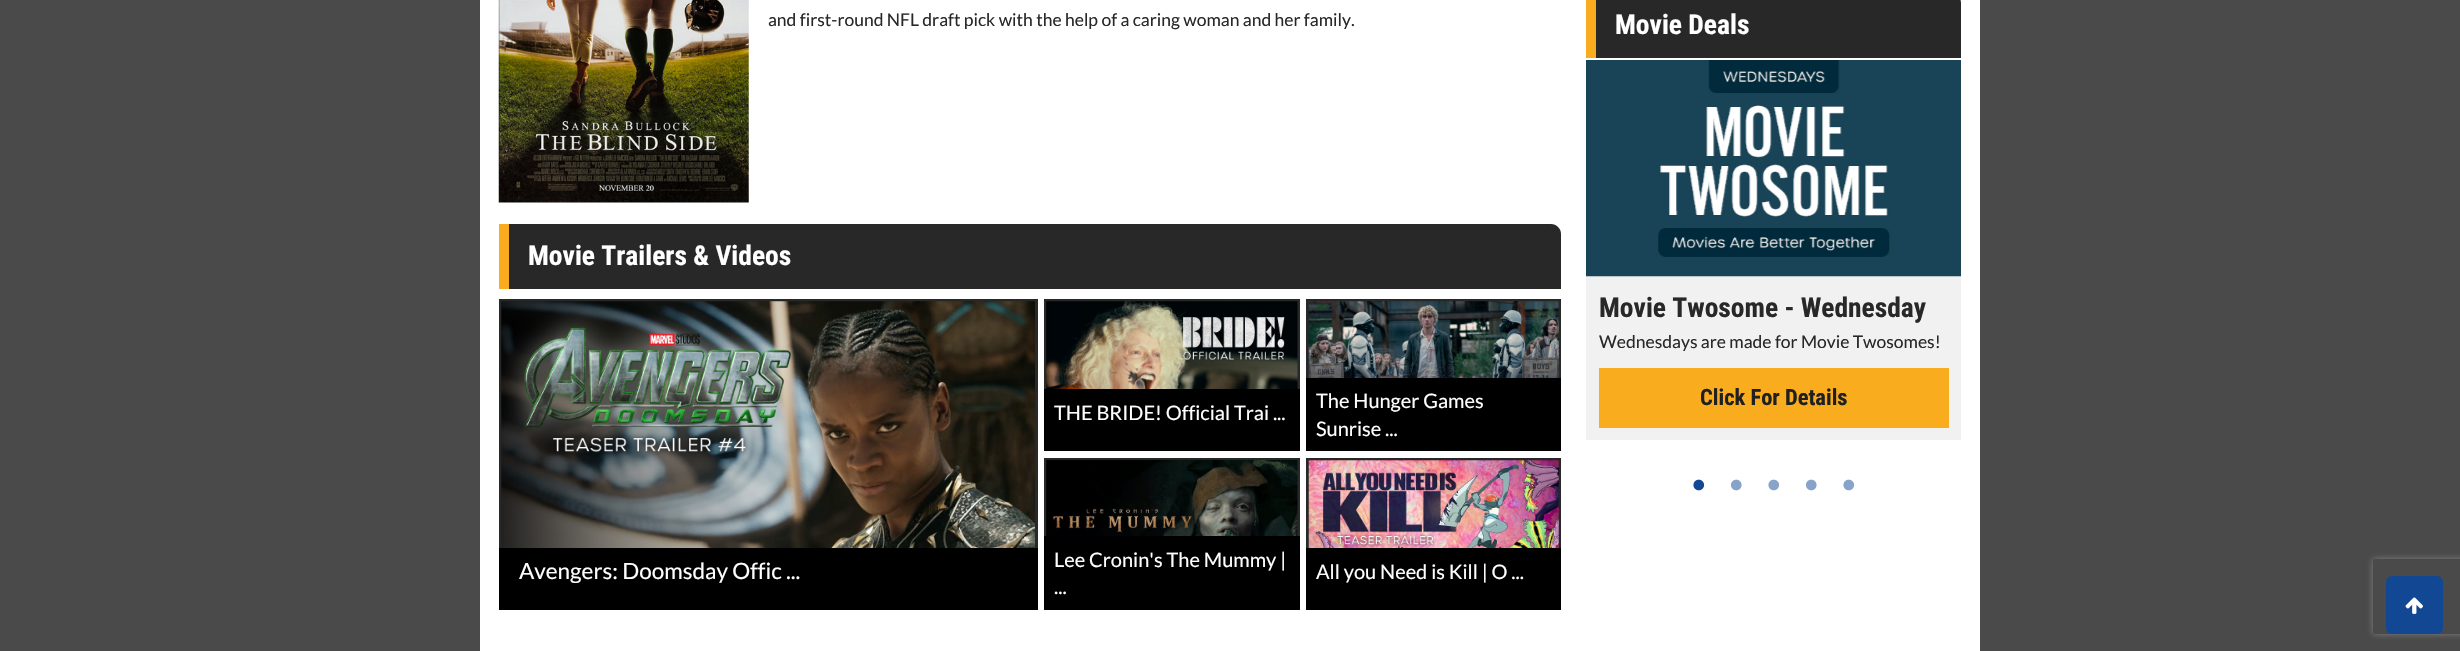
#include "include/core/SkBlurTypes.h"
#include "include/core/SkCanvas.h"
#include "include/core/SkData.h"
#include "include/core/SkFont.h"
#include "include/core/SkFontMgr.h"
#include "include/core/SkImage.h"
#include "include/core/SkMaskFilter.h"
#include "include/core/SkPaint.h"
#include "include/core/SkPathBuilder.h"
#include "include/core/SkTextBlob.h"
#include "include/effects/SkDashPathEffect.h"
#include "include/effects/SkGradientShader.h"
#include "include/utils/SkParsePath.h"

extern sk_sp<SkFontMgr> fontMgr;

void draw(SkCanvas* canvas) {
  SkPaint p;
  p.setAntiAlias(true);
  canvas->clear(SkColorSetRGB(74, 74, 74));
  p.setColor(SK_ColorWHITE);
  canvas->drawRect(SkRect::MakeLTRB(480, 0, 1980, 651), p);
  canvas->drawImageRect(SkImages::DeferredFromEncodedData(SkData::MakeFromFileName("images/1.png")), SkRect::MakeLTRB(498, 0, 749, 203), SkSamplingOptions());
  p.setColor(SkColorSetRGB(40, 40, 40));
  canvas->drawPath(SkPathBuilder().moveTo(499, 224).lineTo(1551, 224).cubicTo(1556.5f, 224, 1561, 228.5f, 1561, 234).lineTo(1561, 289).lineTo(499, 289).close().detach(), p);
  p.setColor(SkColorSetRGB(250, 172, 31));
  canvas->drawRect(SkRect::MakeLTRB(499, 224, 509, 289), p);
  p.setStyle(SkPaint::kStroke_Style);
  p.setStrokeWidth(3);
  p.setColor(SkColorSetRGB(40, 40, 40));
  canvas->drawRect(SkRect::MakeLTRB(1045.5f, 300.5f, 1298.5f, 443.5f), p);
  canvas->drawImageRect(SkImages::DeferredFromEncodedData(SkData::MakeFromFileName("images/2.png")), SkRect::MakeLTRB(1046, 301, 1298, 389), SkSamplingOptions());
  p.setStyle(SkPaint::kFill_Style);
  p.setColor(SK_ColorBLACK);
  canvas->drawRect(SkRect::MakeLTRB(1044, 389, 1300, 451), p);
  p.setStyle(SkPaint::kStroke_Style);
  p.setColor(SkColorSetRGB(40, 40, 40));
  canvas->drawRect(SkRect::MakeLTRB(1307.5f, 300.5f, 1559.5f, 443.5f), p);
  canvas->drawImageRect(SkImages::DeferredFromEncodedData(SkData::MakeFromFileName("images/3.png")), SkRect::MakeLTRB(1308, 301, 1559, 378), SkSamplingOptions());
  p.setStyle(SkPaint::kFill_Style);
  p.setColor(SK_ColorBLACK);
  canvas->drawRect(SkRect::MakeLTRB(1306, 378, 1561, 451), p);
  p.setStyle(SkPaint::kStroke_Style);
  p.setColor(SkColorSetRGB(40, 40, 40));
  canvas->drawRect(SkRect::MakeLTRB(500.5f, 300.5f, 1036.5f, 602.5f), p);
  canvas->drawImageRect(SkImages::DeferredFromEncodedData(SkData::MakeFromFileName("images/4.png")), SkRect::MakeLTRB(501, 301, 1035, 548), SkSamplingOptions());
  p.setStyle(SkPaint::kFill_Style);
  p.setColor(SK_ColorBLACK);
  canvas->drawRect(SkRect::MakeLTRB(499, 548, 1038, 610), p);
  p.setStyle(SkPaint::kStroke_Style);
  p.setColor(SkColorSetRGB(40, 40, 40));
  canvas->drawRect(SkRect::MakeLTRB(1045.5f, 459.5f, 1298.5f, 602.5f), p);
  canvas->drawImageRect(SkImages::DeferredFromEncodedData(SkData::MakeFromFileName("images/5.png")), SkRect::MakeLTRB(1046, 460, 1298, 536), SkSamplingOptions());
  p.setStyle(SkPaint::kFill_Style);
  p.setColor(SK_ColorBLACK);
  canvas->drawRect(SkRect::MakeLTRB(1044, 536, 1300, 610), p);
  p.setStyle(SkPaint::kStroke_Style);
  p.setColor(SkColorSetRGB(40, 40, 40));
  canvas->drawRect(SkRect::MakeLTRB(1307.5f, 459.5f, 1559.5f, 602.5f), p);
  canvas->drawImageRect(SkImages::DeferredFromEncodedData(SkData::MakeFromFileName("images/6.png")), SkRect::MakeLTRB(1308, 460, 1559, 548), SkSamplingOptions());
  p.setStyle(SkPaint::kFill_Style);
  p.setColor(SK_ColorBLACK);
  canvas->drawRect(SkRect::MakeLTRB(1306, 548, 1561, 610), p);
  p.setColor(SkColorSetRGB(40, 40, 40));
  canvas->drawPath(SkPathBuilder().moveTo(1586, -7).lineTo(1951, -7).cubicTo(1956.5f, -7, 1961, -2.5f, 1961, 3).lineTo(1961, 58).lineTo(1586, 58).close().detach(), p);
  p.setColor(SkColorSetRGB(250, 172, 31));
  canvas->drawRect(SkRect::MakeLTRB(1586, 0, 1596, 58), p);
  p.setColor(SkColorSetRGB(241, 241, 241));
  canvas->drawRect(SkRect::MakeLTRB(1586, 276, 1961, 440), p);
  canvas->drawImageRect(SkImages::DeferredFromEncodedData(SkData::MakeFromFileName("images/7.png")), SkRect::MakeLTRB(1586, 60, 1961, 277), SkSamplingOptions());
  p.setColor(SkColorSetRGB(250, 172, 31));
  canvas->drawRect(SkRect::MakeLTRB(1599, 368, 1949, 428), p);
  canvas->drawImageRect(SkImages::DeferredFromEncodedData(SkData::MakeFromFileName("images/8.png")), SkRect::MakeLTRB(1693, 479, 1705, 491), SkSamplingOptions());
  canvas->drawImageRect(SkImages::DeferredFromEncodedData(SkData::MakeFromFileName("images/9.png")), SkRect::MakeLTRB(1731, 479, 1742, 491), SkSamplingOptions());
  canvas->drawImageRect(SkImages::DeferredFromEncodedData(SkData::MakeFromFileName("images/10.png")), SkRect::MakeLTRB(1768, 479, 1779, 491), SkSamplingOptions());
  canvas->drawImageRect(SkImages::DeferredFromEncodedData(SkData::MakeFromFileName("images/9.png")), SkRect::MakeLTRB(1806, 479, 1817, 491), SkSamplingOptions());
  canvas->drawImageRect(SkImages::DeferredFromEncodedData(SkData::MakeFromFileName("images/10.png")), SkRect::MakeLTRB(1843, 479, 1854, 491), SkSamplingOptions());
  canvas->save();
  canvas->clipPath(SkPathBuilder(SkPathFillType::kEvenOdd).moveTo(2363, 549).lineTo(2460, 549).lineTo(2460, 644).lineTo(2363, 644).close().moveTo(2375.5f, 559).lineTo(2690.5f, 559).cubicTo(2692, 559, 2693, 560, 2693, 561.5f).lineTo(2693, 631.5f).cubicTo(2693, 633, 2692, 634, 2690.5f, 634).lineTo(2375.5f, 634).cubicTo(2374, 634, 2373, 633, 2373, 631.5f).lineTo(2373, 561.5f).cubicTo(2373, 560, 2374, 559, 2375.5f, 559).close().detach(), true);
  p.setColor(SkColorSetRGB(128, 128, 128));
  p.setMaskFilter(SkMaskFilter::MakeBlur(kNormal_SkBlurStyle, 3));
  canvas->drawRoundRect(SkRect::MakeLTRB(2373, 559, 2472, 634), 2.5f, 2.5f, p);
  p.setMaskFilter(nullptr);
  canvas->restore();
  p.setColor(SkColorSetRGB(18, 71, 147));
  canvas->drawRoundRect(SkRect::MakeLTRB(2386, 576, 2443, 634), 6, 6, p);
  canvas->drawImageRect(SkImages::DeferredFromEncodedData(SkData::MakeFromFileName("images/11.png")), SkRect::MakeLTRB(2405, 597, 2423, 614), SkSamplingOptions());
  SkFont font1(fontMgr->matchFamilyStyle("Lato", SkFontStyle::Normal()), 17.5f);
  font1.setSubpixel(true);
  p.setColor(SkColorSetRGB(40, 40, 40));
  canvas->drawString("and first-round NFL draft pick with the help of a caring woman and her family.", 768, 26, font1, p);
  SkFont font2(fontMgr->matchFamilyStyle("Roboto Condensed", SkFontStyle::Bold()), 27.5f);
  font2.setSubpixel(true);
  p.setColor(SK_ColorWHITE);
  canvas->drawString("Movie Trailers & Videos", 528, 265, font2, p);
  SkFont font3(fontMgr->matchFamilyStyle("Lato", SkFontStyle::Normal()), 20);
  font3.setSubpixel(true);
  canvas->drawString("THE BRIDE! Official Trai ...", 1054, 420, font3, p);
  canvas->drawString("The Hunger Games", 1316, 408, font3, p);
  canvas->drawString("Sunrise ...", 1316, 436, font3, p);
  SkFont font4(fontMgr->matchFamilyStyle("Lato", SkFontStyle::Normal()), 22.5f);
  font4.setSubpixel(true);
  canvas->drawString("Avengers: Doomsday Offic ...", 519, 579, font4, p);
  canvas->drawString("Lee Cronin's The Mummy |", 1054, 567, font3, p);
  canvas->drawString("...", 1054, 594, font3, p);
  canvas->drawString("All you Need is Kill | O ...", 1316, 579, font3, p);
  canvas->drawString("Movie Deals", 1615, 34, font2, p);
  p.setColor(SkColorSetRGB(40, 40, 40));
  canvas->drawString("Movie Twosome - Wednesday", 1599, 317, font2, p);
  canvas->drawString("Wednesdays are made for Movie Twosomes!", 1599, 348, font1, p);
  SkFont font5(fontMgr->matchFamilyStyle("Roboto Condensed", SkFontStyle::Bold()), 22.5f);
  font5.setSubpixel(true);
  p.setColor(SkColorSetRGB(32, 32, 32));
  canvas->drawString("Click For Details", 1700, 405, font5, p);
}
